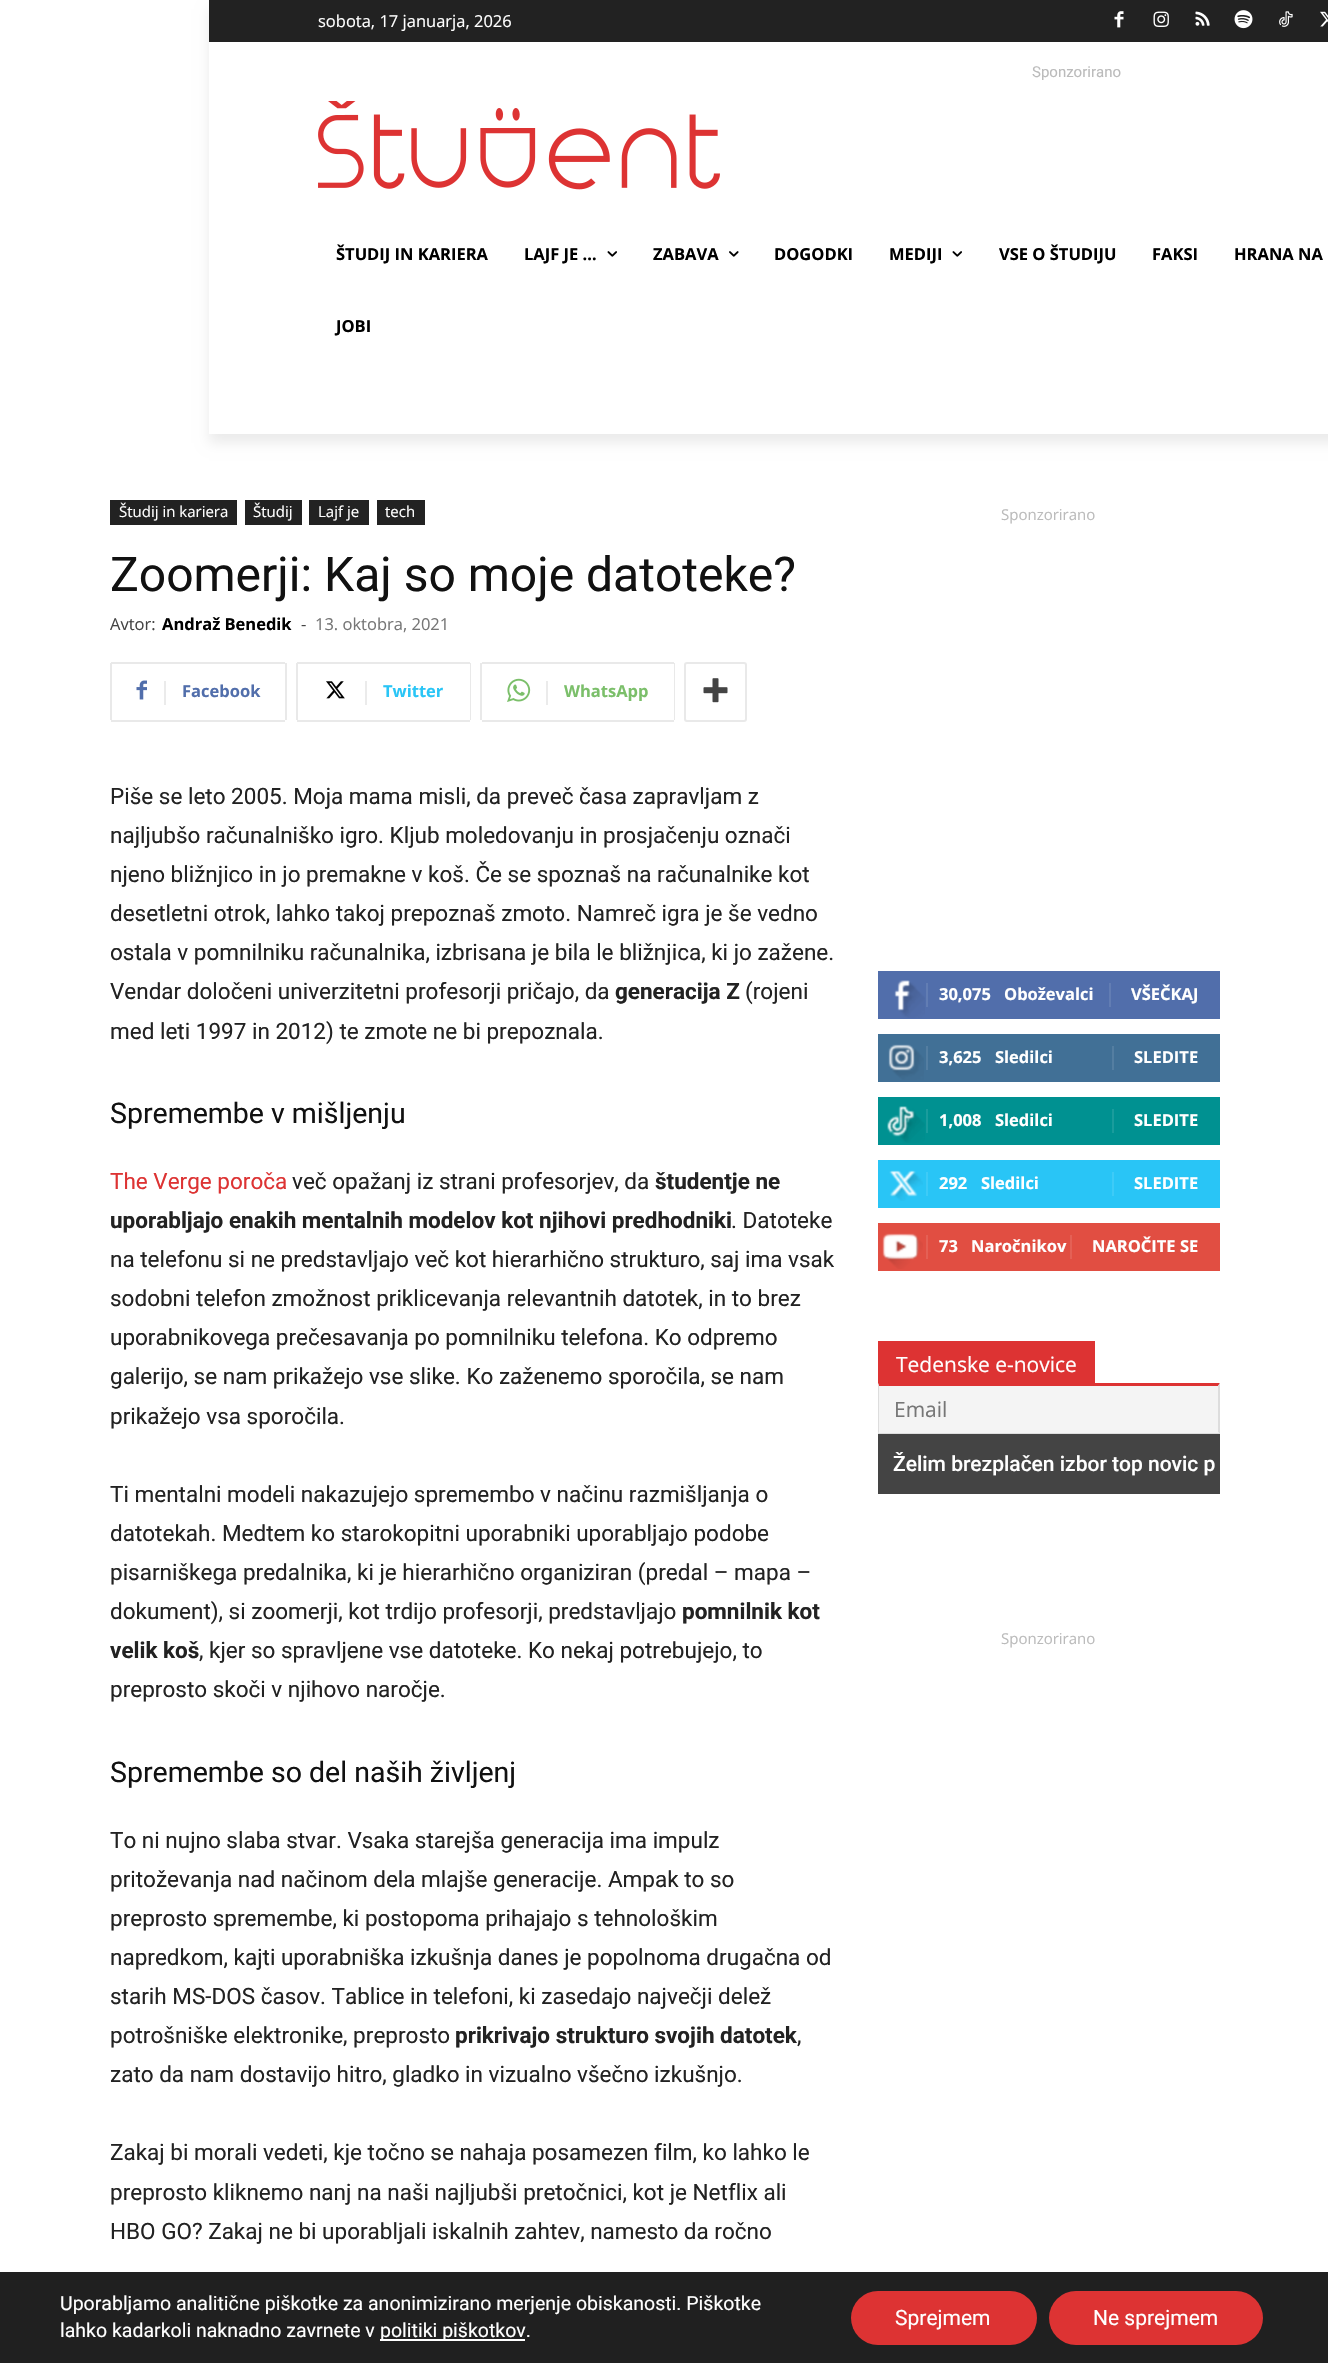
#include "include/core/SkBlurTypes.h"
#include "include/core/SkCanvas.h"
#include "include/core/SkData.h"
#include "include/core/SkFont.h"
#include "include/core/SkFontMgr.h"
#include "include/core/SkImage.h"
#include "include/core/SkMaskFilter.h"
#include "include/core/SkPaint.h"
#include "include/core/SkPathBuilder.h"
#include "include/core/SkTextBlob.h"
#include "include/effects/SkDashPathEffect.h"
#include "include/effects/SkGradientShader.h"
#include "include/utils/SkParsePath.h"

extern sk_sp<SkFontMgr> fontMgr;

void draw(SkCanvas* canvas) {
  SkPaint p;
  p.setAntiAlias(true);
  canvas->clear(SK_ColorWHITE);
  p.setColor(SkColorSetRGB(34, 34, 34));
  canvas->drawRect(SkRect::MakeLTRB(209, 0, 1328, 42), p);
  canvas->drawImageRect(SkImages::DeferredFromEncodedData(SkData::MakeFromFileName("images/1.png")), SkRect::MakeLTRB(1114, 11, 1124, 28), SkSamplingOptions());
  canvas->drawImageRect(SkImages::DeferredFromEncodedData(SkData::MakeFromFileName("images/2.png")), SkRect::MakeLTRB(1153, 11, 1169, 27), SkSamplingOptions());
  canvas->drawImageRect(SkImages::DeferredFromEncodedData(SkData::MakeFromFileName("images/3.png")), SkRect::MakeLTRB(1195, 11, 1210, 26), SkSamplingOptions());
  canvas->drawImageRect(SkImages::DeferredFromEncodedData(SkData::MakeFromFileName("images/4.png")), SkRect::MakeLTRB(1234, 10, 1253, 29), SkSamplingOptions());
  canvas->drawImageRect(SkImages::DeferredFromEncodedData(SkData::MakeFromFileName("images/5.png")), SkRect::MakeLTRB(1279, 11, 1293, 27), SkSamplingOptions());
  canvas->drawImageRect(SkImages::DeferredFromEncodedData(SkData::MakeFromFileName("images/6.png")), SkRect::MakeLTRB(1320, 11, 1328, 27), SkSamplingOptions());
  canvas->drawImageRect(SkImages::DeferredFromEncodedData(SkData::MakeFromFileName("images/7.png")), SkRect::MakeLTRB(318, 101, 720, 190), SkSamplingOptions());
  canvas->save();
  canvas->clipPath(SkPathBuilder(SkPathFillType::kEvenOdd).moveTo(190, 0).lineTo(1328, 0).lineTo(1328, 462).lineTo(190, 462).close().moveTo(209, 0).lineTo(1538, 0).lineTo(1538, 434).lineTo(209, 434).close().detach(), true);
  p.setColor(SkColorSetARGB(20, 0, 0, 0));
  p.setMaskFilter(SkMaskFilter::MakeBlur(kNormal_SkBlurStyle, 6));
  canvas->drawRect(SkRect::MakeLTRB(209, 9, 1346, 443), p);
  p.setMaskFilter(nullptr);
  canvas->restore();
  canvas->drawImageRect(SkImages::DeferredFromEncodedData(SkData::MakeFromFileName("images/8.png")), SkRect::MakeLTRB(607, 251, 617, 257), SkSamplingOptions());
  canvas->drawImageRect(SkImages::DeferredFromEncodedData(SkData::MakeFromFileName("images/9.png")), SkRect::MakeLTRB(729, 251, 739, 257), SkSamplingOptions());
  canvas->drawImageRect(SkImages::DeferredFromEncodedData(SkData::MakeFromFileName("images/8.png")), SkRect::MakeLTRB(952, 251, 962, 257), SkSamplingOptions());
  p.setColor(SkColorSetRGB(34, 34, 34));
  canvas->drawRect(SkRect::MakeLTRB(110, 500, 237, 525), p);
  canvas->drawRect(SkRect::MakeLTRB(245, 500, 302, 525), p);
  canvas->drawRect(SkRect::MakeLTRB(309, 500, 369, 525), p);
  canvas->drawRect(SkRect::MakeLTRB(377, 500, 425, 525), p);
  p.setColor(SkColorSetRGB(233, 233, 233));
  canvas->drawRect(SkRect::MakeLTRB(111, 662, 285, 664), p);
  canvas->drawRect(SkRect::MakeLTRB(110, 663, 112, 720), p);
  canvas->drawImageRect(SkImages::DeferredFromEncodedData(SkData::MakeFromFileName("images/10.png")), SkRect::MakeLTRB(136, 680, 147, 700), SkSamplingOptions());
  canvas->drawRect(SkRect::MakeLTRB(285, 663, 287, 720), p);
  canvas->drawRect(SkRect::MakeLTRB(111, 720, 285, 722), p);
  p.setColor(SkColorSetRGB(235, 235, 235));
  canvas->drawRect(SkRect::MakeLTRB(164, 681, 166, 705), p);
  p.setColor(SkColorSetRGB(233, 233, 233));
  canvas->drawRect(SkRect::MakeLTRB(297, 662, 470, 664), p);
  canvas->drawRect(SkRect::MakeLTRB(296, 663, 298, 720), p);
  canvas->drawImageRect(SkImages::DeferredFromEncodedData(SkData::MakeFromFileName("images/11.png")), SkRect::MakeLTRB(326, 681, 345, 699), SkSamplingOptions());
  canvas->drawRect(SkRect::MakeLTRB(470, 663, 471, 720), p);
  canvas->drawRect(SkRect::MakeLTRB(297, 720, 470, 722), p);
  p.setColor(SkColorSetRGB(235, 235, 235));
  canvas->drawRect(SkRect::MakeLTRB(365, 681, 367, 705), p);
  p.setColor(SkColorSetRGB(233, 233, 233));
  canvas->drawRect(SkRect::MakeLTRB(480, 663, 482, 720), p);
  canvas->drawImageRect(SkImages::DeferredFromEncodedData(SkData::MakeFromFileName("images/12.png")), SkRect::MakeLTRB(507, 678, 531, 702), SkSamplingOptions());
  canvas->drawRect(SkRect::MakeLTRB(482, 662, 674, 664), p);
  canvas->drawRect(SkRect::MakeLTRB(674, 663, 675, 720), p);
  canvas->drawRect(SkRect::MakeLTRB(482, 720, 674, 722), p);
  p.setColor(SkColorSetRGB(235, 235, 235));
  canvas->drawRect(SkRect::MakeLTRB(546, 681, 548, 705), p);
  p.setStyle(SkPaint::kStroke_Style);
  p.setStrokeWidth(2);
  p.setColor(SkColorSetRGB(233, 233, 233));
  canvas->drawRoundRect(SkRect::MakeLTRB(685, 663, 746, 721), 2, 2, p);
  canvas->drawImageRect(SkImages::DeferredFromEncodedData(SkData::MakeFromFileName("images/13.png")), SkRect::MakeLTRB(703, 678, 728, 703), SkSamplingOptions());
  p.setStyle(SkPaint::kFill_Style);
  p.setColor(SkColorSetRGB(81, 110, 171));
  canvas->drawRect(SkRect::MakeLTRB(878, 971, 1220, 1019), p);
  canvas->drawImageRect(SkImages::DeferredFromEncodedData(SkData::MakeFromFileName("images/14.png")), SkRect::MakeLTRB(894, 980, 925, 1018), SkSamplingOptions());
  p.setColor(SkColorSetRGB(98, 125, 179));
  canvas->drawRect(SkRect::MakeLTRB(926, 983, 928, 1007), p);
  canvas->drawRect(SkRect::MakeLTRB(1109, 983, 1111, 1007), p);
  p.setColor(SkColorSetRGB(65, 112, 150));
  canvas->drawRect(SkRect::MakeLTRB(878, 1034, 1220, 1082), p);
  canvas->drawImageRect(SkImages::DeferredFromEncodedData(SkData::MakeFromFileName("images/15.png")), SkRect::MakeLTRB(888, 1044, 924, 1080), SkSamplingOptions());
  p.setColor(SkColorSetRGB(84, 126, 161));
  canvas->drawRect(SkRect::MakeLTRB(926, 1046, 928, 1070), p);
  canvas->drawRect(SkRect::MakeLTRB(1112, 1046, 1114, 1070), p);
  p.setColor(SkColorSetRGB(0, 145, 145));
  canvas->drawRect(SkRect::MakeLTRB(878, 1097, 1220, 1145), p);
  canvas->drawImageRect(SkImages::DeferredFromEncodedData(SkData::MakeFromFileName("images/16.png")), SkRect::MakeLTRB(887, 1106, 925, 1143), SkSamplingOptions());
  p.setColor(SkColorSetRGB(26, 156, 156));
  canvas->drawRect(SkRect::MakeLTRB(926, 1109, 928, 1133), p);
  canvas->drawRect(SkRect::MakeLTRB(1112, 1109, 1114, 1133), p);
  p.setColor(SkColorSetRGB(41, 197, 246));
  canvas->drawRect(SkRect::MakeLTRB(878, 1160, 1220, 1208), p);
  canvas->drawImageRect(SkImages::DeferredFromEncodedData(SkData::MakeFromFileName("images/17.png")), SkRect::MakeLTRB(889, 1170, 923, 1201), SkSamplingOptions());
  p.setColor(SkColorSetRGB(62, 203, 247));
  canvas->drawRect(SkRect::MakeLTRB(926, 1172, 928, 1196), p);
  canvas->drawRect(SkRect::MakeLTRB(1112, 1172, 1114, 1196), p);
  p.setColor(SkColorSetRGB(225, 78, 66));
  canvas->drawRect(SkRect::MakeLTRB(878, 1223, 1220, 1271), p);
  canvas->drawImageRect(SkImages::DeferredFromEncodedData(SkData::MakeFromFileName("images/18.png")), SkRect::MakeLTRB(882, 1233, 923, 1269), SkSamplingOptions());
  p.setColor(SkColorSetRGB(228, 96, 85));
  canvas->drawRect(SkRect::MakeLTRB(926, 1235, 928, 1259), p);
  canvas->drawRect(SkRect::MakeLTRB(1070, 1235, 1072, 1259), p);
  p.setColor(SkColorSetRGB(221, 51, 51));
  canvas->drawRect(SkRect::MakeLTRB(878, 1341, 1095, 1383), p);
  p.setColor(SkColorSetRGB(244, 244, 244));
  canvas->drawRect(SkRect::MakeLTRB(879, 1386, 1218, 1433), p);
  p.setColor(SkColorSetRGB(221, 51, 51));
  canvas->drawPath(SkPathBuilder().moveTo(878, 1383).lineTo(1220, 1383).lineTo(1218, 1386).lineTo(879, 1386).close().detach(), p);
  p.setColor(SkColorSetRGB(221, 221, 221));
  canvas->drawPath(SkPathBuilder().moveTo(1220, 1383).lineTo(1220, 1434).lineTo(1218, 1432).lineTo(1218, 1386).close().detach(), p);
  canvas->drawRect(SkRect::MakeLTRB(878, 1433, 1220, 1434), p);
  canvas->drawPath(SkPathBuilder().moveTo(878, 1434).lineTo(878, 1383).lineTo(879, 1386).lineTo(879, 1432).close().detach(), p);
  p.setColor(SkColorSetRGB(68, 68, 68));
  canvas->drawRect(SkRect::MakeLTRB(878, 1434, 1220, 1494), p);
  p.setColor(SkColorSetRGB(32, 32, 32));
  canvas->drawRect(SkRect::MakeLTRB(0, 2272, 1328, 2363), p);
  p.setColor(SK_ColorWHITE);
  canvas->drawRect(SkRect::MakeLTRB(380, 2339, 525, 2341), p);
  p.setColor(SkColorSetRGB(221, 51, 51));
  canvas->drawRoundRect(SkRect::MakeLTRB(851, 2291, 1037, 2345), 27, 27, p);
  canvas->drawRoundRect(SkRect::MakeLTRB(1049, 2291, 1263, 2345), 27, 27, p);
  SkFont font1(fontMgr->matchFamilyStyle("Open Sans", SkFontStyle::Normal()), 16.5f);
  font1.setSubpixel(true);
  p.setColor(SK_ColorWHITE);
  canvas->drawString("sobota, 17 januarja, 2026", 318, 27, font1, p);
  SkFont font2(fontMgr->matchFamilyStyle("Roboto", SkFontStyle::Normal()), 15);
  font2.setSubpixel(true);
  p.setColor(SkColorSetRGB(187, 187, 187));
  canvas->drawString("Sponzorirano", 1032, 77, font2, p);
  SkFont font3(fontMgr->matchFamilyStyle("Open Sans", SkFontStyle::Bold()), 16.5f);
  font3.setSubpixel(true);
  p.setColor(SK_ColorBLACK);
  canvas->drawString("ŠTUDIJ IN KARIERA", 336, 260, font3, p);
  canvas->drawString("LAJF JE …", 524, 260, font3, p);
  canvas->drawString("ZABAVA", 653, 260, font3, p);
  canvas->drawString("DOGODKI", 774, 260, font3, p);
  canvas->drawString("MEDIJI", 889, 260, font3, p);
  canvas->drawString("VSE O ŠTUDIJU", 999, 260, font3, p);
  canvas->drawString("FAKSI", 1152, 260, font3, p);
  canvas->drawString("HRANA NA", 1234, 260, font3, p);
  canvas->drawString("JOBI", 336, 332, font3, p);
  SkFont font4(fontMgr->matchFamilyStyle("Open Sans", SkFontStyle::Normal()), 15);
  font4.setSubpixel(true);
  p.setColor(SK_ColorWHITE);
  canvas->drawString("Študij in kariera", 119, 517, font4, p);
  canvas->drawString("Študij", 253, 517, font4, p);
  canvas->drawString("Lajf je", 318, 517, font4, p);
  canvas->drawString("tech", 385, 517, font4, p);
  SkFont font5(fontMgr->matchFamilyStyle("Roboto", SkFontStyle::Normal()), 48);
  font5.setSubpixel(true);
  p.setColor(SkColorSetRGB(17, 17, 17));
  canvas->drawString("Zoomerji: Kaj so moje datoteke?", 110, 591, font5, p);
  p.setColor(SkColorSetRGB(68, 68, 68));
  canvas->drawString("Avtor:", 110, 630, font1, p);
  p.setColor(SK_ColorBLACK);
  canvas->drawString("Andraž Benedik", 162, 630, font3, p);
  p.setColor(SkColorSetRGB(68, 68, 68));
  canvas->drawString("-", 301, 630, font1, p);
  p.setColor(SkColorSetRGB(118, 118, 118));
  canvas->drawString("13. oktobra, 2021", 315, 630, font1, p);
  p.setColor(SkColorSetRGB(81, 110, 171));
  canvas->drawString("Facebook", 182, 697, font3, p);
  p.setColor(SkColorSetRGB(41, 197, 246));
  canvas->drawString("Twitter", 383, 697, font3, p);
  p.setColor(SkColorSetRGB(123, 191, 106));
  canvas->drawString("WhatsApp", 564, 697, font3, p);
  SkFont font6(fontMgr->matchFamilyStyle("Roboto", SkFontStyle::Normal()), 22.5f);
  font6.setSubpixel(true);
  p.setColor(SkColorSetRGB(34, 34, 34));
  canvas->drawString("Piše se leto 2005. Moja mama misli, da preveč časa zapravljam z", 110, 804, font6, p);
  canvas->drawString("najljubšo računalniško igro. Kljub moledovanju in prosjačenju označi", 110, 843, font6, p);
  canvas->drawString("njeno bližnjico in jo premakne v koš. Če se spoznaš na računalnike kot", 110, 882, font6, p);
  canvas->drawString("desetletni otrok, lahko takoj prepoznaš zmoto. Namreč igra je še vedno", 110, 921, font6, p);
  canvas->drawString("ostala v pomnilniku računalnika, izbrisana je bila le bližnjica, ki jo zažene.", 110, 960, font6, p);
  canvas->drawString("Vendar določeni univerzitetni profesorji pričajo, da", 110, 999, font6, p);
  SkFont font7(fontMgr->matchFamilyStyle("Roboto", SkFontStyle::Bold()), 22.5f);
  font7.setSubpixel(true);
  canvas->drawString("generacija Z", 615, 999, font7, p);
  canvas->drawString("(rojeni", 745, 999, font6, p);
  canvas->drawString("med leti 1997 in 2012) te zmote ne bi prepoznala.", 110, 1039, font6, p);
  SkFont font8(fontMgr->matchFamilyStyle("Roboto", SkFontStyle::Normal()), 28.5f);
  font8.setSubpixel(true);
  p.setColor(SkColorSetRGB(17, 17, 17));
  canvas->drawString("Spremembe v mišljenju", 110, 1123, font8, p);
  p.setColor(SkColorSetRGB(221, 51, 51));
  canvas->drawString("The Verge poroča", 110, 1189, font6, p);
  p.setColor(SkColorSetRGB(34, 34, 34));
  canvas->drawString("več opažanj iz strani profesorjev, da", 292, 1189, font6, p);
  canvas->drawString("študentje ne", 655, 1189, font7, p);
  canvas->drawString("uporabljajo enakih mentalnih modelov kot njihovi predhodniki", 110, 1228, font7, p);
  canvas->drawString(". Datoteke", 731, 1228, font6, p);
  canvas->drawString("na telefonu si ne predstavljajo več kot hierarhično strukturo, saj ima vsak", 110, 1267, font6, p);
  canvas->drawString("sodobni telefon zmožnost priklicevanja relevantnih datotek, in to brez", 110, 1306, font6, p);
  canvas->drawString("uporabnikovega prečesavanja po pomnilniku telefona. Ko odpremo", 110, 1345, font6, p);
  canvas->drawString("galerijo, se nam prikažejo vse slike. Ko zaženemo sporočila, se nam", 110, 1384, font6, p);
  canvas->drawString("prikažejo vsa sporočila.", 110, 1424, font6, p);
  canvas->drawString("Ti mentalni modeli nakazujejo spremembo v načinu razmišljanja o", 110, 1502, font6, p);
  canvas->drawString("datotekah. Medtem ko starokopitni uporabniki uporabljajo podobe", 110, 1541, font6, p);
  canvas->drawString("pisarniškega predalnika, ki je hierarhično organiziran (predal – mapa –", 110, 1580, font6, p);
  canvas->drawString("dokument), si zoomerji, kot trdijo profesorji, predstavljajo", 110, 1619, font6, p);
  canvas->drawString("pomnilnik kot", 682, 1619, font7, p);
  canvas->drawString("velik koš", 110, 1658, font7, p);
  canvas->drawString(", kjer so spravljene vse datoteke. Ko nekaj potrebujejo, to", 199, 1658, font6, p);
  canvas->drawString("preprosto skoči v njihovo naročje.", 110, 1697, font6, p);
  p.setColor(SkColorSetRGB(17, 17, 17));
  canvas->drawString("Spremembe so del naših življenj", 110, 1782, font8, p);
  p.setColor(SkColorSetRGB(34, 34, 34));
  canvas->drawString("To ni nujno slaba stvar. Vsaka starejša generacija ima impulz", 110, 1848, font6, p);
  canvas->drawString("pritoževanja nad načinom dela mlajše generacije. Ampak to so", 110, 1887, font6, p);
  canvas->drawString("preprosto spremembe, ki postopoma prihajajo s tehnološkim", 110, 1926, font6, p);
  canvas->drawString("napredkom, kajti uporabniška izkušnja danes je popolnoma drugačna od", 110, 1965, font6, p);
  canvas->drawString("starih MS-DOS časov. Tablice in telefoni, ki zasedajo največji delež", 110, 2004, font6, p);
  canvas->drawString("potrošniške elektronike, preprosto", 110, 2043, font6, p);
  canvas->drawString("prikrivajo strukturo svojih datotek", 455, 2043, font7, p);
  canvas->drawString(",", 797, 2043, font6, p);
  canvas->drawString("zato da nam dostavijo hitro, gladko in vizualno všečno izkušnjo.", 110, 2082, font6, p);
  canvas->drawString("Zakaj bi morali vedeti, kje točno se nahaja posamezen film, ko lahko le", 110, 2160, font6, p);
  canvas->drawString("preprosto kliknemo nanj na naši najljubši pretočnici, kot je Netflix ali", 110, 2200, font6, p);
  canvas->drawString("HBO GO? Zakaj ne bi uporabljali iskalnih zahtev, namesto da ročno", 110, 2239, font6, p);
  p.setColor(SkColorSetRGB(187, 187, 187));
  canvas->drawString("Sponzorirano", 1001, 520, font4, p);
  p.setColor(SK_ColorWHITE);
  canvas->drawString("30,075", 939, 1000, font3, p);
  canvas->drawString("Oboževalci", 1004, 1000, font3, p);
  canvas->drawString("VŠEČKAJ", 1131, 1000, font3, p);
  canvas->drawString("3,625", 939, 1063, font3, p);
  canvas->drawString("Sledilci", 995, 1063, font3, p);
  canvas->drawString("SLEDITE", 1134, 1063, font3, p);
  canvas->drawString("1,008", 939, 1126, font3, p);
  canvas->drawString("Sledilci", 995, 1126, font3, p);
  canvas->drawString("SLEDITE", 1134, 1126, font3, p);
  canvas->drawString("292", 939, 1189, font3, p);
  canvas->drawString("Sledilci", 981, 1189, font3, p);
  canvas->drawString("SLEDITE", 1134, 1189, font3, p);
  canvas->drawString("73", 939, 1252, font3, p);
  canvas->drawString("Naročnikov", 971, 1252, font3, p);
  canvas->drawString("NAROČITE SE", 1092, 1252, font3, p);
  SkFont font9(fontMgr->matchFamilyStyle("Open Sans", SkFontStyle::Normal()), 21);
  font9.setSubpixel(true);
  canvas->drawString("Tedenske e-novice", 896, 1372, font9, p);
  p.setColor(SkColorSetRGB(118, 118, 118));
  canvas->drawString("Email", 894, 1417, font9, p);
  SkFont font10(fontMgr->matchFamilyStyle("Roboto", SkFontStyle(500, SkFontStyle::kNormal_Width, SkFontStyle::kUpright_Slant)), 21);
  font10.setSubpixel(true);
  p.setColor(SK_ColorWHITE);
  canvas->drawString("Želim brezplačen izbor top novic p", 893, 1471, font10, p);
  p.setColor(SkColorSetRGB(187, 187, 187));
  canvas->drawString("Sponzorirano", 1001, 1644, font4, p);
  SkFont font11(fontMgr->matchFamilyStyle("Roboto", SkFontStyle::Normal()), 19.5f);
  font11.setSubpixel(true);
  p.setColor(SK_ColorWHITE);
  canvas->drawString("Uporabljamo analitične piškotke za anonimizirano merjenje obiskanosti. Piškotke", 60, 2310, font11, p);
  canvas->drawString("lahko kadarkoli naknadno zavrnete v", 60, 2337, font11, p);
  canvas->drawString("politiki piškotkov.", 380, 2337, font11, p);
  SkFont font12(fontMgr->matchFamilyStyle("Roboto", SkFontStyle::Normal()), 21);
  font12.setSubpixel(true);
  canvas->drawString("Sprejmem", 895, 2325, font12, p);
  canvas->drawString("Ne sprejmem", 1093, 2325, font12, p);
}
